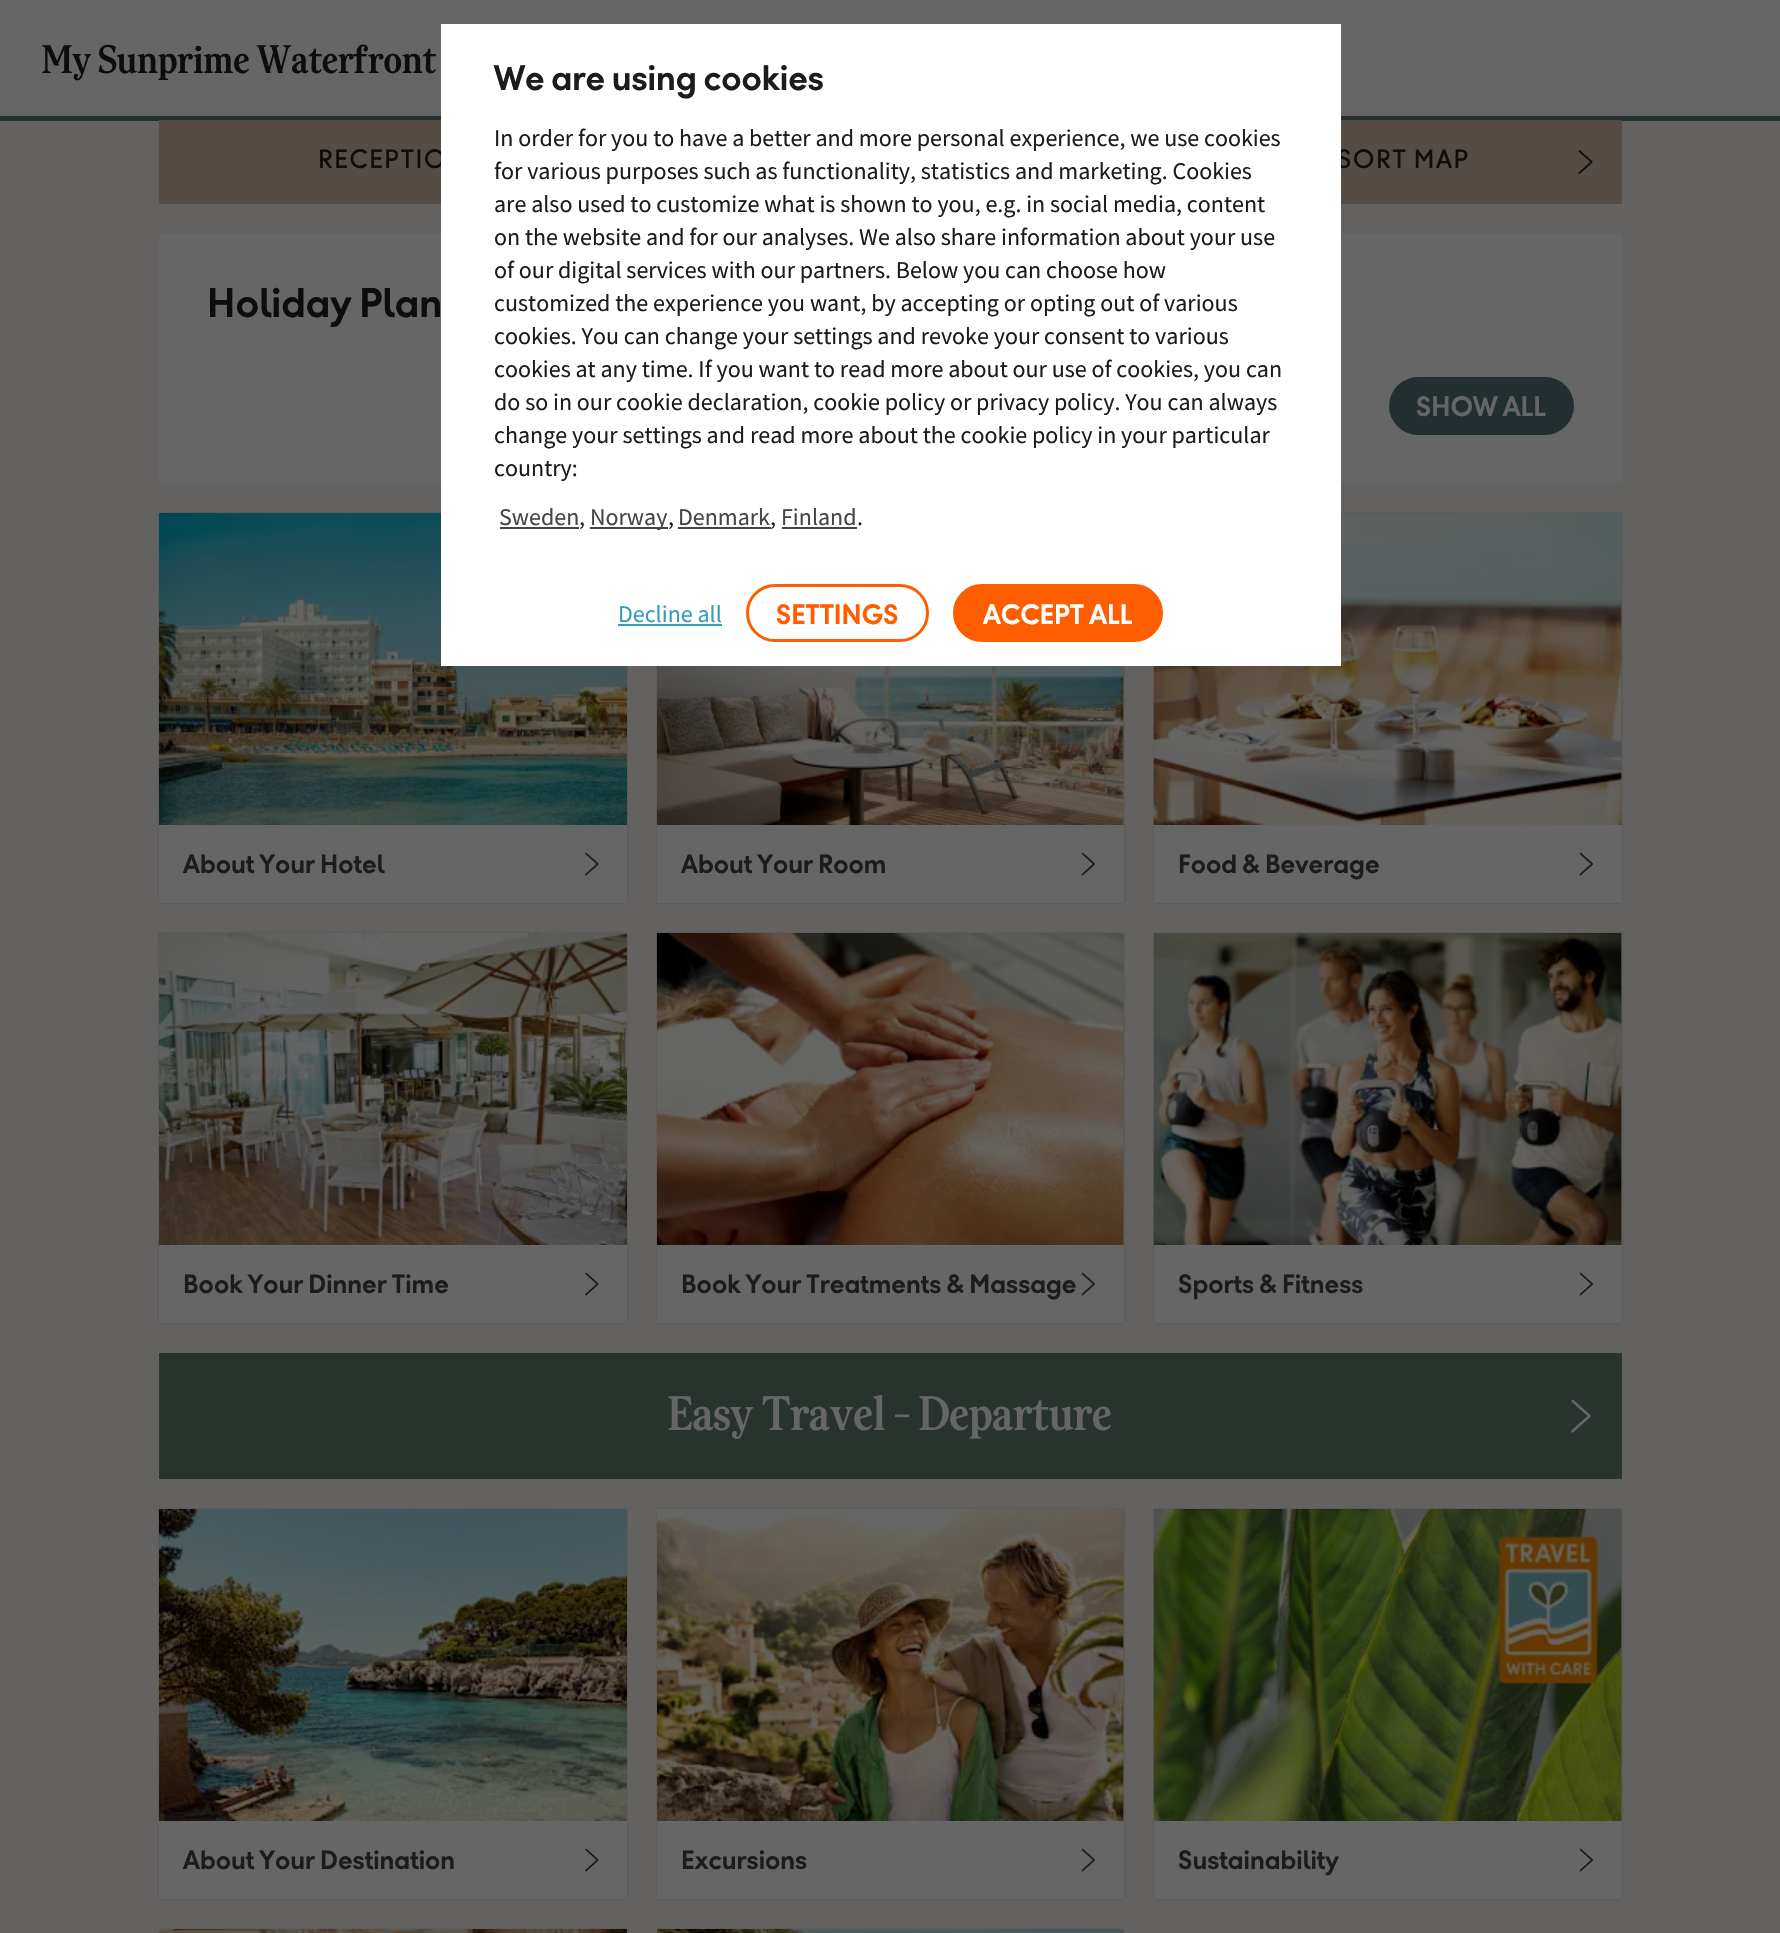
#include "include/core/SkBlurTypes.h"
#include "include/core/SkCanvas.h"
#include "include/core/SkData.h"
#include "include/core/SkFont.h"
#include "include/core/SkFontMgr.h"
#include "include/core/SkImage.h"
#include "include/core/SkMaskFilter.h"
#include "include/core/SkPaint.h"
#include "include/core/SkPathBuilder.h"
#include "include/core/SkTextBlob.h"
#include "include/effects/SkDashPathEffect.h"
#include "include/effects/SkGradientShader.h"
#include "include/utils/SkParsePath.h"

extern sk_sp<SkFontMgr> fontMgr;

void draw(SkCanvas* canvas) {
  SkPaint p;
  p.setAntiAlias(true);
  auto spacedText = [&](const char* s, float x, float y, const SkFont& font, const SkPaint& ink, float letter, float word) {
    std::vector<SkGlyphID> glyphs(font.countText(s, strlen(s), SkTextEncoding::kUTF8));
    std::vector<float> xs(glyphs.size());
    font.textToGlyphs(s, strlen(s), SkTextEncoding::kUTF8, glyphs);
    font.getXPos(glyphs, xs, x);
    float extra = 0;
    for (size_t i = 0; i < glyphs.size(); i++) {
      xs[i] += extra;
      extra += letter + word * (glyphs[i] == font.unicharToGlyph(' '));
    }
    canvas->drawTextBlob(SkTextBlob::MakeFromPosHGlyphs(glyphs, xs, y, font), 0, 0, ink);
  };
  canvas->clear(SkColorSetRGB(100, 98, 96));
  p.setColor(SkColorSetRGB(102, 102, 102));
  canvas->drawRect(SkRect::MakeLTRB(0, 0, 1780, 116), p);
  p.setColor(SkColorSetRGB(34, 46, 48));
  canvas->drawRect(SkRect::MakeLTRB(0, 116, 1780, 121), p);
  p.setColor(SkColorSetRGB(84, 76, 69));
  canvas->drawRect(SkRect::MakeLTRB(159, 120, 441, 204), p);
  canvas->drawRect(SkRect::MakeLTRB(1341, 120, 1622, 204), p);
  canvas->drawImageRect(SkImages::DeferredFromEncodedData(SkData::MakeFromFileName("images/1.png")), SkRect::MakeLTRB(1578, 150, 1593, 174), SkSamplingOptions());
  p.setColor(SkColorSetRGB(102, 102, 102));
  canvas->drawRect(SkRect::MakeLTRB(159, 234, 1622, 483), p);
  p.setColor(SkColorSetRGB(34, 46, 48));
  canvas->drawRoundRect(SkRect::MakeLTRB(1389, 377, 1574, 435), 29, 29, p);
  p.setColor(SkColorSetRGB(80, 80, 80));
  p.setMaskFilter(SkMaskFilter::MakeBlur(kNormal_SkBlurStyle, 1));
  canvas->drawRect(SkRect::MakeLTRB(159, 513, 627, 903), p);
  p.setMaskFilter(nullptr);
  canvas->drawImageRect(SkImages::DeferredFromEncodedData(SkData::MakeFromFileName("images/2.png")), SkRect::MakeLTRB(159, 513, 627, 825), SkSamplingOptions());
  p.setColor(SkColorSetRGB(102, 102, 102));
  canvas->drawRect(SkRect::MakeLTRB(159, 825, 627, 903), p);
  canvas->drawImageRect(SkImages::DeferredFromEncodedData(SkData::MakeFromFileName("images/3.png")), SkRect::MakeLTRB(585, 852, 599, 876), SkSamplingOptions());
  p.setColor(SkColorSetRGB(80, 80, 80));
  p.setMaskFilter(SkMaskFilter::MakeBlur(kNormal_SkBlurStyle, 1));
  canvas->drawRect(SkRect::MakeLTRB(657, 513, 1124, 903), p);
  p.setMaskFilter(nullptr);
  canvas->drawImageRect(SkImages::DeferredFromEncodedData(SkData::MakeFromFileName("images/4.png")), SkRect::MakeLTRB(657, 666, 1124, 825), SkSamplingOptions());
  p.setColor(SkColorSetRGB(102, 102, 102));
  canvas->drawRect(SkRect::MakeLTRB(657, 825, 1124, 903), p);
  canvas->drawImageRect(SkImages::DeferredFromEncodedData(SkData::MakeFromFileName("images/5.png")), SkRect::MakeLTRB(1081, 852, 1095, 876), SkSamplingOptions());
  p.setColor(SkColorSetRGB(80, 80, 80));
  p.setMaskFilter(SkMaskFilter::MakeBlur(kNormal_SkBlurStyle, 1));
  canvas->drawRect(SkRect::MakeLTRB(1154, 513, 1622, 903), p);
  p.setMaskFilter(nullptr);
  canvas->drawImageRect(SkImages::DeferredFromEncodedData(SkData::MakeFromFileName("images/6.png")), SkRect::MakeLTRB(1153, 513, 1622, 825), SkSamplingOptions());
  p.setColor(SkColorSetRGB(102, 102, 102));
  canvas->drawRect(SkRect::MakeLTRB(1154, 825, 1622, 903), p);
  canvas->drawImageRect(SkImages::DeferredFromEncodedData(SkData::MakeFromFileName("images/5.png")), SkRect::MakeLTRB(1579, 852, 1593, 876), SkSamplingOptions());
  p.setColor(SkColorSetRGB(80, 80, 80));
  p.setMaskFilter(SkMaskFilter::MakeBlur(kNormal_SkBlurStyle, 1));
  canvas->drawRect(SkRect::MakeLTRB(159, 933, 627, 1323), p);
  p.setMaskFilter(nullptr);
  canvas->drawImageRect(SkImages::DeferredFromEncodedData(SkData::MakeFromFileName("images/7.png")), SkRect::MakeLTRB(159, 933, 627, 1245), SkSamplingOptions());
  p.setColor(SkColorSetRGB(102, 102, 102));
  canvas->drawRect(SkRect::MakeLTRB(159, 1245, 627, 1323), p);
  canvas->drawImageRect(SkImages::DeferredFromEncodedData(SkData::MakeFromFileName("images/3.png")), SkRect::MakeLTRB(585, 1272, 599, 1296), SkSamplingOptions());
  p.setColor(SkColorSetRGB(80, 80, 80));
  p.setMaskFilter(SkMaskFilter::MakeBlur(kNormal_SkBlurStyle, 1));
  canvas->drawRect(SkRect::MakeLTRB(657, 933, 1124, 1323), p);
  p.setMaskFilter(nullptr);
  canvas->drawImageRect(SkImages::DeferredFromEncodedData(SkData::MakeFromFileName("images/8.png")), SkRect::MakeLTRB(657, 933, 1124, 1245), SkSamplingOptions());
  p.setColor(SkColorSetRGB(102, 102, 102));
  canvas->drawRect(SkRect::MakeLTRB(657, 1245, 1124, 1323), p);
  canvas->drawImageRect(SkImages::DeferredFromEncodedData(SkData::MakeFromFileName("images/5.png")), SkRect::MakeLTRB(1081, 1272, 1095, 1296), SkSamplingOptions());
  p.setColor(SkColorSetRGB(80, 80, 80));
  p.setMaskFilter(SkMaskFilter::MakeBlur(kNormal_SkBlurStyle, 1));
  canvas->drawRect(SkRect::MakeLTRB(1154, 933, 1622, 1323), p);
  p.setMaskFilter(nullptr);
  canvas->drawImageRect(SkImages::DeferredFromEncodedData(SkData::MakeFromFileName("images/9.png")), SkRect::MakeLTRB(1153, 933, 1622, 1245), SkSamplingOptions());
  p.setColor(SkColorSetRGB(102, 102, 102));
  canvas->drawRect(SkRect::MakeLTRB(1154, 1245, 1622, 1323), p);
  canvas->drawImageRect(SkImages::DeferredFromEncodedData(SkData::MakeFromFileName("images/5.png")), SkRect::MakeLTRB(1579, 1272, 1593, 1296), SkSamplingOptions());
  p.setColor(SkColorSetRGB(41, 51, 46));
  canvas->drawRect(SkRect::MakeLTRB(159, 1353, 1622, 1479), p);
  canvas->drawImageRect(SkImages::DeferredFromEncodedData(SkData::MakeFromFileName("images/10.png")), SkRect::MakeLTRB(1571, 1400, 1591, 1433), SkSamplingOptions());
  p.setColor(SkColorSetRGB(80, 80, 80));
  p.setMaskFilter(SkMaskFilter::MakeBlur(kNormal_SkBlurStyle, 1));
  canvas->drawRect(SkRect::MakeLTRB(159, 1509, 627, 1899), p);
  p.setMaskFilter(nullptr);
  canvas->drawImageRect(SkImages::DeferredFromEncodedData(SkData::MakeFromFileName("images/11.png")), SkRect::MakeLTRB(159, 1509, 627, 1821), SkSamplingOptions());
  p.setColor(SkColorSetRGB(102, 102, 102));
  canvas->drawRect(SkRect::MakeLTRB(159, 1821, 627, 1899), p);
  canvas->drawImageRect(SkImages::DeferredFromEncodedData(SkData::MakeFromFileName("images/3.png")), SkRect::MakeLTRB(585, 1848, 599, 1872), SkSamplingOptions());
  p.setColor(SkColorSetRGB(80, 80, 80));
  p.setMaskFilter(SkMaskFilter::MakeBlur(kNormal_SkBlurStyle, 1));
  canvas->drawRect(SkRect::MakeLTRB(657, 1509, 1124, 1899), p);
  p.setMaskFilter(nullptr);
  canvas->drawImageRect(SkImages::DeferredFromEncodedData(SkData::MakeFromFileName("images/12.png")), SkRect::MakeLTRB(657, 1509, 1124, 1821), SkSamplingOptions());
  p.setColor(SkColorSetRGB(102, 102, 102));
  canvas->drawRect(SkRect::MakeLTRB(657, 1821, 1124, 1899), p);
  canvas->drawImageRect(SkImages::DeferredFromEncodedData(SkData::MakeFromFileName("images/5.png")), SkRect::MakeLTRB(1081, 1848, 1095, 1872), SkSamplingOptions());
  p.setColor(SkColorSetRGB(80, 80, 80));
  p.setMaskFilter(SkMaskFilter::MakeBlur(kNormal_SkBlurStyle, 1));
  canvas->drawRect(SkRect::MakeLTRB(1154, 1509, 1622, 1899), p);
  p.setMaskFilter(nullptr);
  canvas->drawImageRect(SkImages::DeferredFromEncodedData(SkData::MakeFromFileName("images/13.png")), SkRect::MakeLTRB(1153, 1509, 1622, 1821), SkSamplingOptions());
  p.setColor(SkColorSetRGB(102, 102, 102));
  canvas->drawRect(SkRect::MakeLTRB(1154, 1821, 1622, 1899), p);
  canvas->drawImageRect(SkImages::DeferredFromEncodedData(SkData::MakeFromFileName("images/5.png")), SkRect::MakeLTRB(1579, 1848, 1593, 1872), SkSamplingOptions());
  p.setColor(SkColorSetRGB(80, 80, 80));
  p.setMaskFilter(SkMaskFilter::MakeBlur(kNormal_SkBlurStyle, 1));
  canvas->drawRect(SkRect::MakeLTRB(159, 1929, 627, 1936), p);
  p.setMaskFilter(nullptr);
  canvas->drawImageRect(SkImages::DeferredFromEncodedData(SkData::MakeFromFileName("images/14.png")), SkRect::MakeLTRB(159, 1929, 627, 1933), SkSamplingOptions());
  p.setMaskFilter(SkMaskFilter::MakeBlur(kNormal_SkBlurStyle, 1));
  canvas->drawRect(SkRect::MakeLTRB(657, 1929, 1124, 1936), p);
  p.setMaskFilter(nullptr);
  canvas->drawImageRect(SkImages::DeferredFromEncodedData(SkData::MakeFromFileName("images/15.png")), SkRect::MakeLTRB(657, 1929, 1124, 1933), SkSamplingOptions());
  SkFont font1(fontMgr->matchFamilyStyle("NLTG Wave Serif", SkFontStyle::Normal()), 42);
  font1.setSubpixel(true);
  p.setColor(SkColorSetRGB(13, 13, 13));
  canvas->drawString("My Sunprime Waterfront", 42, 73, font1, p);
  SkFont font2(fontMgr->matchFamilyStyle("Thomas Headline", SkFontStyle::Normal()), 27);
  font2.setSubpixel(true);
  spacedText("RECEPTIO", 318, 168, font2, p, 1.5f, 0);
  spacedText("SORT MAP", 1337, 168, font2, p, 1.5f, 0);
  p.setColor(SK_ColorWHITE);
  canvas->drawRect(SkRect::MakeLTRB(441, 24, 1341, 666), p);
  SkFont font3(fontMgr->matchFamilyStyle("Source Sans Pro", SkFontStyle::Normal()), 24);
  font3.setSubpixel(true);
  p.setColor(SkColorSetRGB(28, 28, 28));
  canvas->drawString(".", 857, 525, font3, p);
  p.setColor(SkColorSetRGB(69, 69, 69));
  canvas->drawString("Finland", 781, 525, font3, p);
  canvas->drawRect(SkRect::MakeLTRB(782, 527, 857, 529), p);
  p.setColor(SkColorSetRGB(28, 28, 28));
  canvas->drawString(",", 770, 525, font3, p);
  p.setColor(SkColorSetRGB(69, 69, 69));
  canvas->drawString("Denmark", 678, 525, font3, p);
  canvas->drawRect(SkRect::MakeLTRB(678, 527, 771, 529), p);
  p.setColor(SkColorSetRGB(28, 28, 28));
  canvas->drawString(",", 668, 525, font3, p);
  p.setColor(SkColorSetRGB(69, 69, 69));
  canvas->drawRect(SkRect::MakeLTRB(590, 527, 668, 529), p);
  canvas->drawString("Norway", 590, 525, font3, p);
  p.setColor(SkColorSetRGB(28, 28, 28));
  canvas->drawString(",", 579, 525, font3, p);
  p.setColor(SkColorSetRGB(69, 69, 69));
  canvas->drawString("Sweden", 499, 525, font3, p);
  canvas->drawRect(SkRect::MakeLTRB(500, 527, 579, 529), p);
  p.setColor(SkColorSetRGB(28, 28, 28));
  canvas->drawString("country:", 494, 476, font3, p);
  canvas->drawString("change your settings and read more about the cookie policy in your particular", 494, 443, font3, p);
  canvas->drawString("do so in our cookie declaration, cookie policy or privacy policy. You can always", 494, 410, font3, p);
  canvas->drawString("cookies at any time. If you want to read more about our use of cookies, you can", 494, 377, font3, p);
  canvas->drawString("cookies. You can change your settings and revoke your consent to various", 494, 344, font3, p);
  canvas->drawString("customized the experience you want, by accepting or opting out of various", 494, 311, font3, p);
  canvas->drawString("of our digital services with our partners. Below you can choose how", 494, 278, font3, p);
  canvas->drawString("on the website and for our analyses. We also share information about your use", 494, 245, font3, p);
  canvas->drawString("are also used to customize what is shown to you, e.g. in social media, content", 494, 212, font3, p);
  canvas->drawString("for various purposes such as functionality, statistics and marketing. Cookies", 494, 179, font3, p);
  canvas->drawString("In order for you to have a better and more personal experience, we use cookies", 494, 146, font3, p);
  SkFont font4(fontMgr->matchFamilyStyle("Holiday", SkFontStyle::Bold()), 36);
  font4.setSubpixel(true);
  canvas->drawString("We are using cookies", 494, 90, font4, p);
  p.setColor(SkColorSetRGB(255, 94, 0));
  canvas->drawRoundRect(SkRect::MakeLTRB(954.5f, 585.5f, 1161.5f, 640.5f), 27.5f, 27.5f, p);
  p.setStyle(SkPaint::kStroke_Style);
  p.setStrokeWidth(3);
  canvas->drawRoundRect(SkRect::MakeLTRB(954.5f, 585.5f, 1161.5f, 640.5f), 27.5f, 27.5f, p);
  SkFont font5(fontMgr->matchFamilyStyle("Holiday", SkFontStyle::Bold()), 28.5f);
  font5.setSubpixel(true);
  p.setStyle(SkPaint::kFill_Style);
  p.setColor(SK_ColorWHITE);
  canvas->drawString("ACCEPT ALL", 983, 624, font5, p);
  p.setStyle(SkPaint::kStroke_Style);
  p.setColor(SkColorSetRGB(255, 94, 0));
  canvas->drawRoundRect(SkRect::MakeLTRB(747.5f, 585.5f, 927.5f, 640.5f), 27.5f, 27.5f, p);
  p.setStyle(SkPaint::kFill_Style);
  canvas->drawString("SETTINGS", 776, 624, font5, p);
  p.setColor(SkColorSetRGB(53, 156, 187));
  canvas->drawString("Decline all", 618, 622, font3, p);
  canvas->drawRect(SkRect::MakeLTRB(618, 624, 722, 626), p);
  SkFont font6(fontMgr->matchFamilyStyle("Holiday", SkFontStyle::Bold()), 42);
  font6.setSubpixel(true);
  p.setColor(SkColorSetRGB(13, 13, 13));
  canvas->drawString("Holiday Plan", 207, 317, font6, p);
  p.setColor(SkColorSetRGB(102, 102, 102));
  canvas->drawString("SHOW ALL", 1416, 416, font5, p);
  SkFont font7(fontMgr->matchFamilyStyle("Holiday", SkFontStyle::Bold()), 27);
  font7.setSubpixel(true);
  p.setColor(SkColorSetRGB(28, 28, 28));
  canvas->drawString("About Your Hotel", 183, 873, font7, p);
  canvas->drawString("About Your Room", 681, 873, font7, p);
  canvas->drawString("Food & Beverage", 1178, 873, font7, p);
  canvas->drawString("Book Your Dinner Time", 183, 1293, font7, p);
  canvas->drawString("Book Your Treatments & Massage", 681, 1293, font7, p);
  canvas->drawString("Sports & Fitness", 1178, 1293, font7, p);
  SkFont font8(fontMgr->matchFamilyStyle("NLTG Wave Serif", SkFontStyle::Normal()), 51);
  font8.setSubpixel(true);
  p.setColor(SkColorSetRGB(102, 102, 102));
  canvas->drawString("Easy Travel - Departure", 668, 1430, font8, p);
  p.setColor(SkColorSetRGB(28, 28, 28));
  canvas->drawString("About Your Destination", 183, 1869, font7, p);
  canvas->drawString("Excursions", 681, 1869, font7, p);
  canvas->drawString("Sustainability", 1178, 1869, font7, p);
}
